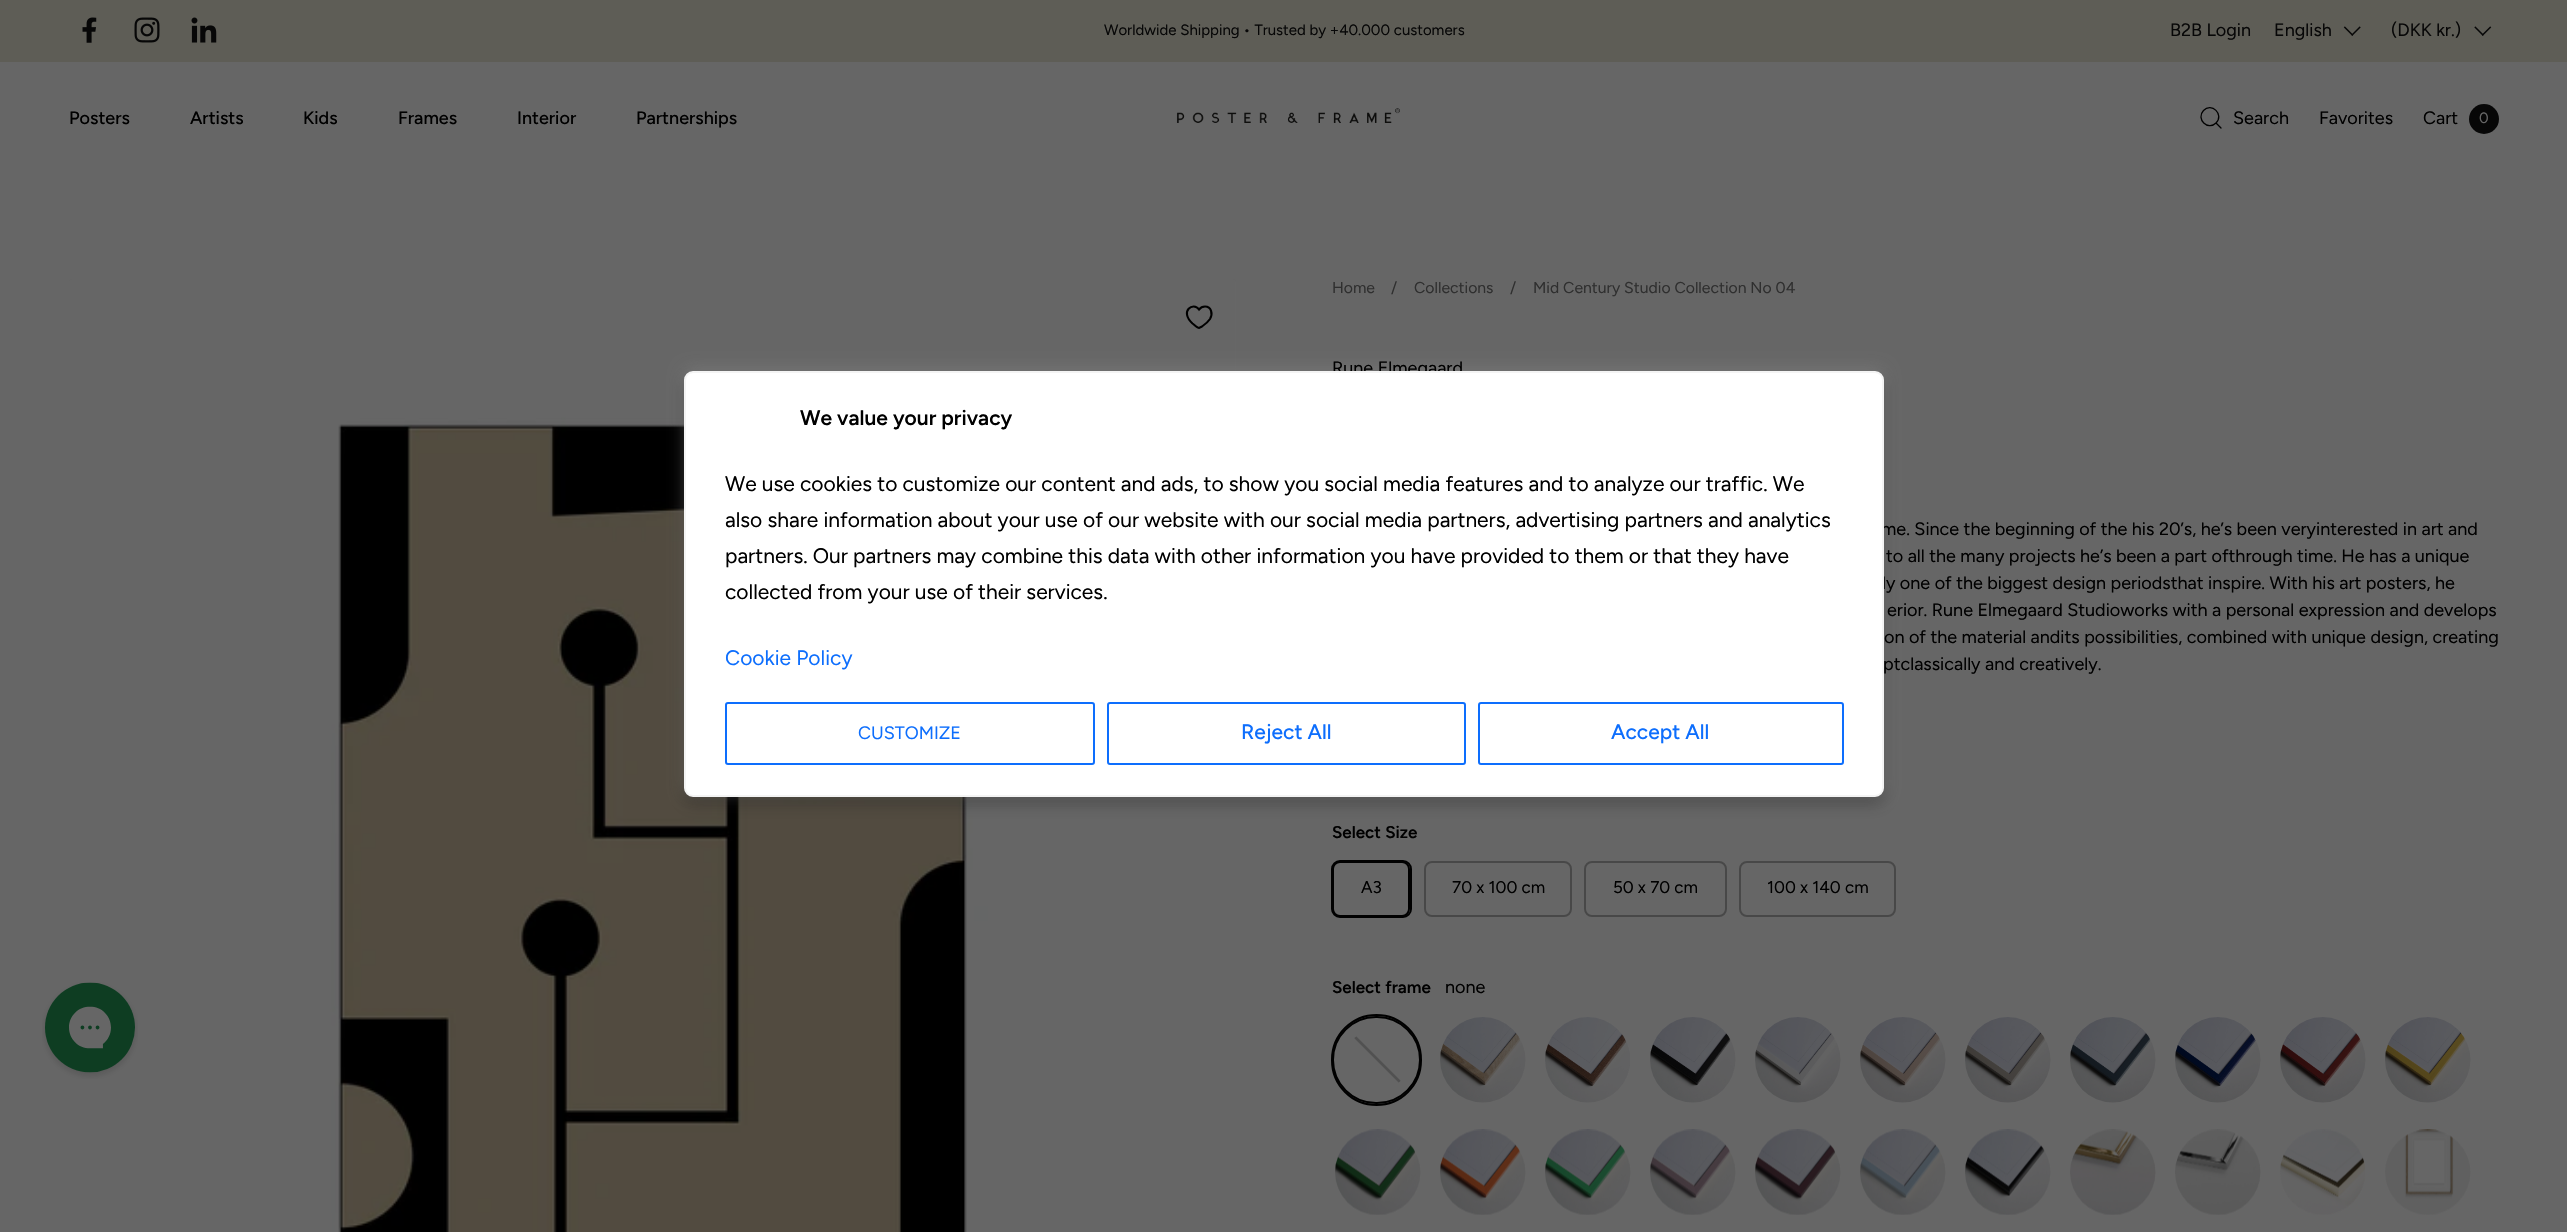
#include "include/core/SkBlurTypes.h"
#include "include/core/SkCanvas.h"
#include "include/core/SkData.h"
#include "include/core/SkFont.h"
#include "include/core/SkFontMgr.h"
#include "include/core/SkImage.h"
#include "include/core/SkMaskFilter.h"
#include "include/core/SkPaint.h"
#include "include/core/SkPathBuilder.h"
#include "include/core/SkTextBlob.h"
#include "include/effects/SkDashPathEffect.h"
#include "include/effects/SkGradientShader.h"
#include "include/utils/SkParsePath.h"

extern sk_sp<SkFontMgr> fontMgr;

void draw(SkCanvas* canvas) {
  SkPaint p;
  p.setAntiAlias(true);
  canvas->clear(SkColorSetRGB(102, 102, 102));
  p.setColor(SkColorSetRGB(94, 93, 86));
  canvas->drawRect(SkRect::MakeLTRB(0, 0, 2567, 62), p);
  canvas->drawImageRect(SkImages::DeferredFromEncodedData(SkData::MakeFromFileName("images/1.png")), SkRect::MakeLTRB(82, 17, 97, 43), SkSamplingOptions());
  canvas->drawImageRect(SkImages::DeferredFromEncodedData(SkData::MakeFromFileName("images/2.png")), SkRect::MakeLTRB(134, 17, 160, 43), SkSamplingOptions());
  canvas->drawImageRect(SkImages::DeferredFromEncodedData(SkData::MakeFromFileName("images/3.png")), SkRect::MakeLTRB(191, 17, 217, 43), SkSamplingOptions());
  canvas->drawImageRect(SkImages::DeferredFromEncodedData(SkData::MakeFromFileName("images/4.png")), SkRect::MakeLTRB(2343, 26, 2361, 36), SkSamplingOptions());
  canvas->drawImageRect(SkImages::DeferredFromEncodedData(SkData::MakeFromFileName("images/5.png")), SkRect::MakeLTRB(2474, 26, 2492, 36), SkSamplingOptions());
  canvas->drawImageRect(SkImages::DeferredFromEncodedData(SkData::MakeFromFileName("images/6.png")), SkRect::MakeLTRB(1176, 108, 1400, 123), SkSamplingOptions());
  p.setStyle(SkPaint::kStroke_Style);
  p.setStrokeWidth(1.3f);
  p.setStrokeCap(SkPaint::kRound_Cap);
  p.setStrokeJoin(SkPaint::kRound_Join);
  p.setColor(SK_ColorBLACK);
  canvas->drawPath(SkPathBuilder().moveTo(2221, 128).lineTo(2216, 123).moveTo(2216, 123).cubicTo(2224.5f, 114.5f, 2211.5f, 102, 2203.5f, 110.5f).cubicTo(2195.5f, 119, 2208, 131, 2216, 123).close().detach(), p);
  p.setStyle(SkPaint::kFill_Style);
  p.setColor(SkColorSetRGB(7, 7, 7));
  canvas->drawCircle(2484, 119, 15, p);
  p.setColor(SkColorSetRGB(98, 98, 98));
  canvas->drawRoundRect(SkRect::MakeLTRB(69, 279, 1236, 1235), 3, 3, p);
  canvas->drawImageRect(SkImages::DeferredFromEncodedData(SkData::MakeFromFileName("images/7.png")), SkRect::MakeLTRB(69, 279, 1236, 1232), SkSamplingOptions());
  p.setColor(SkColorSetARGB(77, 0, 0, 0));
  p.setMaskFilter(SkMaskFilter::MakeBlur(kNormal_SkBlurStyle, 7.5f));
  canvas->drawRoundRect(SkRect::MakeLTRB(684, 378, 1884, 804), 9, 9, p);
  p.setMaskFilter(nullptr);
  p.setColor(SkColorSetARGB(77, 172, 171, 171));
  p.setMaskFilter(SkMaskFilter::MakeBlur(kNormal_SkBlurStyle, 7.5f));
  canvas->drawRoundRect(SkRect::MakeLTRB(684, 369, 1884, 795), 9, 9, p);
  p.setMaskFilter(nullptr);
  p.setStyle(SkPaint::kStroke_Style);
  p.setStrokeWidth(2.1f);
  p.setStrokeCap(SkPaint::kButt_Cap);
  p.setStrokeJoin(SkPaint::kMiter_Join);
  p.setColor(SK_ColorBLACK);
  canvas->drawPath(SkPathBuilder().moveTo(1205, 306.5f).cubicTo(1202.5f, 306.5f, 1200.5f, 307.5f, 1199, 309.5f).cubicTo(1193.5f, 301.5f, 1179, 311, 1192.5f, 323.5f).cubicTo(1194, 324.5f, 1197.5f, 328, 1199, 328).lineTo(1202, 326.5f).cubicTo(1205, 324.5f, 1208, 322, 1210, 319).cubicTo(1213, 314, 1211.5f, 306.5f, 1205, 306.5f).close().detach(), p);
  p.setStrokeWidth(2);
  canvas->drawRoundRect(SkRect::MakeLTRB(1332, 861, 1411, 917), 8, 8, p);
  canvas->drawRoundRect(SkRect::MakeLTRB(1333, 862, 1409, 916), 7, 7, p);
  p.setColor(SkColorSetRGB(72, 72, 72));
  canvas->drawRoundRect(SkRect::MakeLTRB(1425, 862, 1571, 916), 7, 7, p);
  canvas->drawRoundRect(SkRect::MakeLTRB(1585, 862, 1726, 916), 7, 7, p);
  canvas->drawRoundRect(SkRect::MakeLTRB(1740, 862, 1895, 916), 7, 7, p);
  p.setColor(SK_ColorBLACK);
  canvas->drawRoundRect(SkRect::MakeLTRB(1332, 1015, 1421, 1105), 44.5f, 44.5f, p);
  canvas->drawRoundRect(SkRect::MakeLTRB(1333, 1017, 1420, 1103), 43, 43, p);
  p.setStyle(SkPaint::kFill_Style);
  {
    const SkColor colors[] = {SkColorSetRGB(102, 102, 102), SkColorSetRGB(81, 81, 81), SkColorSetRGB(81, 81, 81), SkColorSetRGB(102, 102, 102)};
    const float stops[] = {0.48f, 0.49f, 0.51f, 0.52f};
    const SkPoint ends[] = {{1346, 1091}, {1409, 1028}};
    p.setShader(SkGradientShader::MakeLinear(ends, colors, stops, 4, SkTileMode::kClamp));
    p.setAlpha(255);
  }
  canvas->drawCircle(1377.5f, 1059.5f, 31.5f, p);
  canvas->drawImageRect(SkImages::DeferredFromEncodedData(SkData::MakeFromFileName("images/8.png")), SkRect::MakeLTRB(1440, 1017, 1526, 1103), SkSamplingOptions());
  canvas->drawImageRect(SkImages::DeferredFromEncodedData(SkData::MakeFromFileName("images/9.png")), SkRect::MakeLTRB(1545, 1017, 1630, 1103), SkSamplingOptions());
  canvas->drawImageRect(SkImages::DeferredFromEncodedData(SkData::MakeFromFileName("images/10.png")), SkRect::MakeLTRB(1650, 1017, 1736, 1103), SkSamplingOptions());
  canvas->drawImageRect(SkImages::DeferredFromEncodedData(SkData::MakeFromFileName("images/11.png")), SkRect::MakeLTRB(1755, 1017, 1841, 1103), SkSamplingOptions());
  canvas->drawImageRect(SkImages::DeferredFromEncodedData(SkData::MakeFromFileName("images/12.png")), SkRect::MakeLTRB(1860, 1017, 1946, 1103), SkSamplingOptions());
  canvas->drawImageRect(SkImages::DeferredFromEncodedData(SkData::MakeFromFileName("images/13.png")), SkRect::MakeLTRB(1965, 1017, 2051, 1103), SkSamplingOptions());
  canvas->drawImageRect(SkImages::DeferredFromEncodedData(SkData::MakeFromFileName("images/14.png")), SkRect::MakeLTRB(2070, 1017, 2156, 1103), SkSamplingOptions());
  canvas->drawImageRect(SkImages::DeferredFromEncodedData(SkData::MakeFromFileName("images/15.png")), SkRect::MakeLTRB(2175, 1017, 2261, 1103), SkSamplingOptions());
  canvas->drawImageRect(SkImages::DeferredFromEncodedData(SkData::MakeFromFileName("images/16.png")), SkRect::MakeLTRB(2280, 1017, 2366, 1103), SkSamplingOptions());
  canvas->drawImageRect(SkImages::DeferredFromEncodedData(SkData::MakeFromFileName("images/17.png")), SkRect::MakeLTRB(2385, 1017, 2471, 1103), SkSamplingOptions());
  canvas->drawImageRect(SkImages::DeferredFromEncodedData(SkData::MakeFromFileName("images/18.png")), SkRect::MakeLTRB(1335, 1129, 1421, 1215), SkSamplingOptions());
  canvas->drawImageRect(SkImages::DeferredFromEncodedData(SkData::MakeFromFileName("images/19.png")), SkRect::MakeLTRB(1440, 1129, 1526, 1215), SkSamplingOptions());
  canvas->drawImageRect(SkImages::DeferredFromEncodedData(SkData::MakeFromFileName("images/20.png")), SkRect::MakeLTRB(1545, 1129, 1631, 1215), SkSamplingOptions());
  canvas->drawImageRect(SkImages::DeferredFromEncodedData(SkData::MakeFromFileName("images/21.png")), SkRect::MakeLTRB(1650, 1129, 1736, 1215), SkSamplingOptions());
  canvas->drawImageRect(SkImages::DeferredFromEncodedData(SkData::MakeFromFileName("images/22.png")), SkRect::MakeLTRB(1755, 1129, 1841, 1215), SkSamplingOptions());
  canvas->drawImageRect(SkImages::DeferredFromEncodedData(SkData::MakeFromFileName("images/23.png")), SkRect::MakeLTRB(1860, 1129, 1946, 1215), SkSamplingOptions());
  canvas->drawImageRect(SkImages::DeferredFromEncodedData(SkData::MakeFromFileName("images/24.png")), SkRect::MakeLTRB(1965, 1129, 2051, 1215), SkSamplingOptions());
  canvas->drawImageRect(SkImages::DeferredFromEncodedData(SkData::MakeFromFileName("images/25.png")), SkRect::MakeLTRB(2070, 1129, 2156, 1215), SkSamplingOptions());
  canvas->drawImageRect(SkImages::DeferredFromEncodedData(SkData::MakeFromFileName("images/26.png")), SkRect::MakeLTRB(2175, 1129, 2261, 1215), SkSamplingOptions());
  canvas->drawImageRect(SkImages::DeferredFromEncodedData(SkData::MakeFromFileName("images/27.png")), SkRect::MakeLTRB(2280, 1129, 2365, 1215), SkSamplingOptions());
  canvas->drawImageRect(SkImages::DeferredFromEncodedData(SkData::MakeFromFileName("images/28.png")), SkRect::MakeLTRB(2385, 1129, 2471, 1215), SkSamplingOptions());
  canvas->drawImageRect(SkImages::DeferredFromEncodedData(SkData::MakeFromFileName("images/29.png")), SkRect::MakeLTRB(42, 982, 138, 1079), SkSamplingOptions());
  SkFont font1(fontMgr->matchFamilyStyle("Figtree", SkFontStyle::Normal()), 15);
  font1.setSubpixel(true);
  p.setShader(nullptr);
  p.setColor(SkColorSetRGB(7, 7, 7));
  canvas->drawString("Worldwide Shipping • Trusted by +40.000 customers", 1104, 35, font1, p);
  SkFont font2(fontMgr->matchFamilyStyle("Figtree", SkFontStyle::Normal()), 18);
  font2.setSubpixel(true);
  canvas->drawString("B2B Login", 2170, 36, font2, p);
  canvas->drawString("English", 2274, 36, font2, p);
  canvas->drawString("(DKK kr.)", 2391, 36, font2, p);
  SkFont font3(fontMgr->matchFamilyStyle("Figtree", SkFontStyle(500, SkFontStyle::kNormal_Width, SkFontStyle::kUpright_Slant)), 18);
  font3.setSubpixel(true);
  p.setColor(SK_ColorBLACK);
  canvas->drawString("Posters", 69, 124, font3, p);
  canvas->drawString("Artists", 190, 124, font3, p);
  canvas->drawString("Kids", 303, 124, font3, p);
  canvas->drawString("Frames", 398, 124, font3, p);
  canvas->drawString("Interior", 517, 124, font3, p);
  canvas->drawString("Partnerships", 636, 124, font3, p);
  canvas->drawString("Search", 2233, 124, font2, p);
  canvas->drawString("Favorites", 2319, 124, font2, p);
  canvas->drawString("Cart", 2423, 124, font2, p);
  p.setColor(SkColorSetRGB(102, 102, 102));
  canvas->drawString("0", 2479, 123, font1, p);
  SkFont font4(fontMgr->matchFamilyStyle("Figtree", SkFontStyle::Normal()), 15.75f);
  font4.setSubpixel(true);
  p.setColor(SkColorSetRGB(47, 47, 47));
  canvas->drawString("Home", 1332, 293, font4, p);
  canvas->drawString("/", 1391, 293, font4, p);
  canvas->drawString("Collections", 1414, 293, font4, p);
  canvas->drawString("/", 1510, 293, font4, p);
  canvas->drawString("Mid Century Studio Collection No 04", 1533, 293, font4, p);
  p.setColor(SK_ColorBLACK);
  canvas->drawString("Rune Elmegaard", 1332, 374, font2, p);
  canvas->drawString("me. Since the beginning of the his 20’s, he’s been veryinterested in art and", 1881, 535, font2, p);
  canvas->drawString("to all the many projects he’s been a part ofthrough time. He has a unique", 1886, 562, font2, p);
  canvas->drawString("ly one of the biggest design periodsthat inspire. With his art posters, he", 1882, 589, font2, p);
  p.setColor(SK_ColorWHITE);
  canvas->drawRoundRect(SkRect::MakeLTRB(685, 372, 1883, 796), 8, 8, p);
  p.setStyle(SkPaint::kStroke_Style);
  p.setColor(SkColorSetRGB(244, 244, 244));
  canvas->drawRoundRect(SkRect::MakeLTRB(685, 372, 1883, 796), 8, 8, p);
  p.setColor(SkColorSetRGB(13, 110, 253));
  canvas->drawRoundRect(SkRect::MakeLTRB(1479, 703, 1843, 764), 2, 2, p);
  SkFont font5(fontMgr->matchFamilyStyle("Figtree", SkFontStyle(500, SkFontStyle::kNormal_Width, SkFontStyle::kUpright_Slant)), 21);
  font5.setSubpixel(true);
  p.setStyle(SkPaint::kFill_Style);
  canvas->drawString("Accept All", 1611, 739, font5, p);
  p.setStyle(SkPaint::kStroke_Style);
  canvas->drawRoundRect(SkRect::MakeLTRB(1108, 703, 1465, 764), 2, 2, p);
  p.setStyle(SkPaint::kFill_Style);
  canvas->drawString("Reject All", 1241, 739, font5, p);
  p.setStyle(SkPaint::kStroke_Style);
  canvas->drawRoundRect(SkRect::MakeLTRB(726, 703, 1094, 764), 2, 2, p);
  p.setStyle(SkPaint::kFill_Style);
  canvas->drawString("CUSTOMIZE", 858, 739, font2, p);
  SkFont font6(fontMgr->matchFamilyStyle("Figtree", SkFontStyle::Normal()), 21);
  font6.setSubpixel(true);
  canvas->drawString("Cookie Policy", 725, 665, font6, p);
  p.setColor(SK_ColorBLACK);
  canvas->drawString("collected from your use of their services.", 725, 599, font6, p);
  canvas->drawString("partners. Our partners may combine this data with other information you have provided to them or that they have", 725, 563, font6, p);
  canvas->drawString("also share information about your use of our website with our social media partners, advertising partners and analytics", 725, 527, font6, p);
  canvas->drawString("We use cookies to customize our content and ads, to show you social media features and to analyze our traffic. We", 725, 491, font6, p);
  SkFont font7(fontMgr->matchFamilyStyle("Figtree", SkFontStyle(600, SkFontStyle::kNormal_Width, SkFontStyle::kUpright_Slant)), 21);
  font7.setSubpixel(true);
  canvas->drawString("We value your privacy", 800, 425, font7, p);
  canvas->drawString("erior. Rune Elmegaard Studioworks with a personal expression and develops", 1887, 616, font2, p);
  canvas->drawString("on of the material andits possibilities, combined with unique design, creating", 1884, 643, font2, p);
  canvas->drawString("ptclassically and creatively.", 1883, 670, font2, p);
  SkFont font8(fontMgr->matchFamilyStyle("Figtree", SkFontStyle(600, SkFontStyle::kNormal_Width, SkFontStyle::kUpright_Slant)), 17);
  font8.setSubpixel(true);
  canvas->drawString("Select Size", 1332, 838, font8, p);
  SkFont font9(fontMgr->matchFamilyStyle("Figtree", SkFontStyle::Normal()), 17);
  font9.setSubpixel(true);
  canvas->drawString("A3", 1361, 893, font9, p);
  canvas->drawString("70 x 100 cm", 1452, 893, font9, p);
  canvas->drawString("50 x 70 cm", 1613, 893, font9, p);
  canvas->drawString("100 x 140 cm", 1767, 893, font9, p);
  canvas->drawString("Select frame", 1332, 993, font8, p);
  canvas->drawString("none", 1445, 993, font2, p);
}
